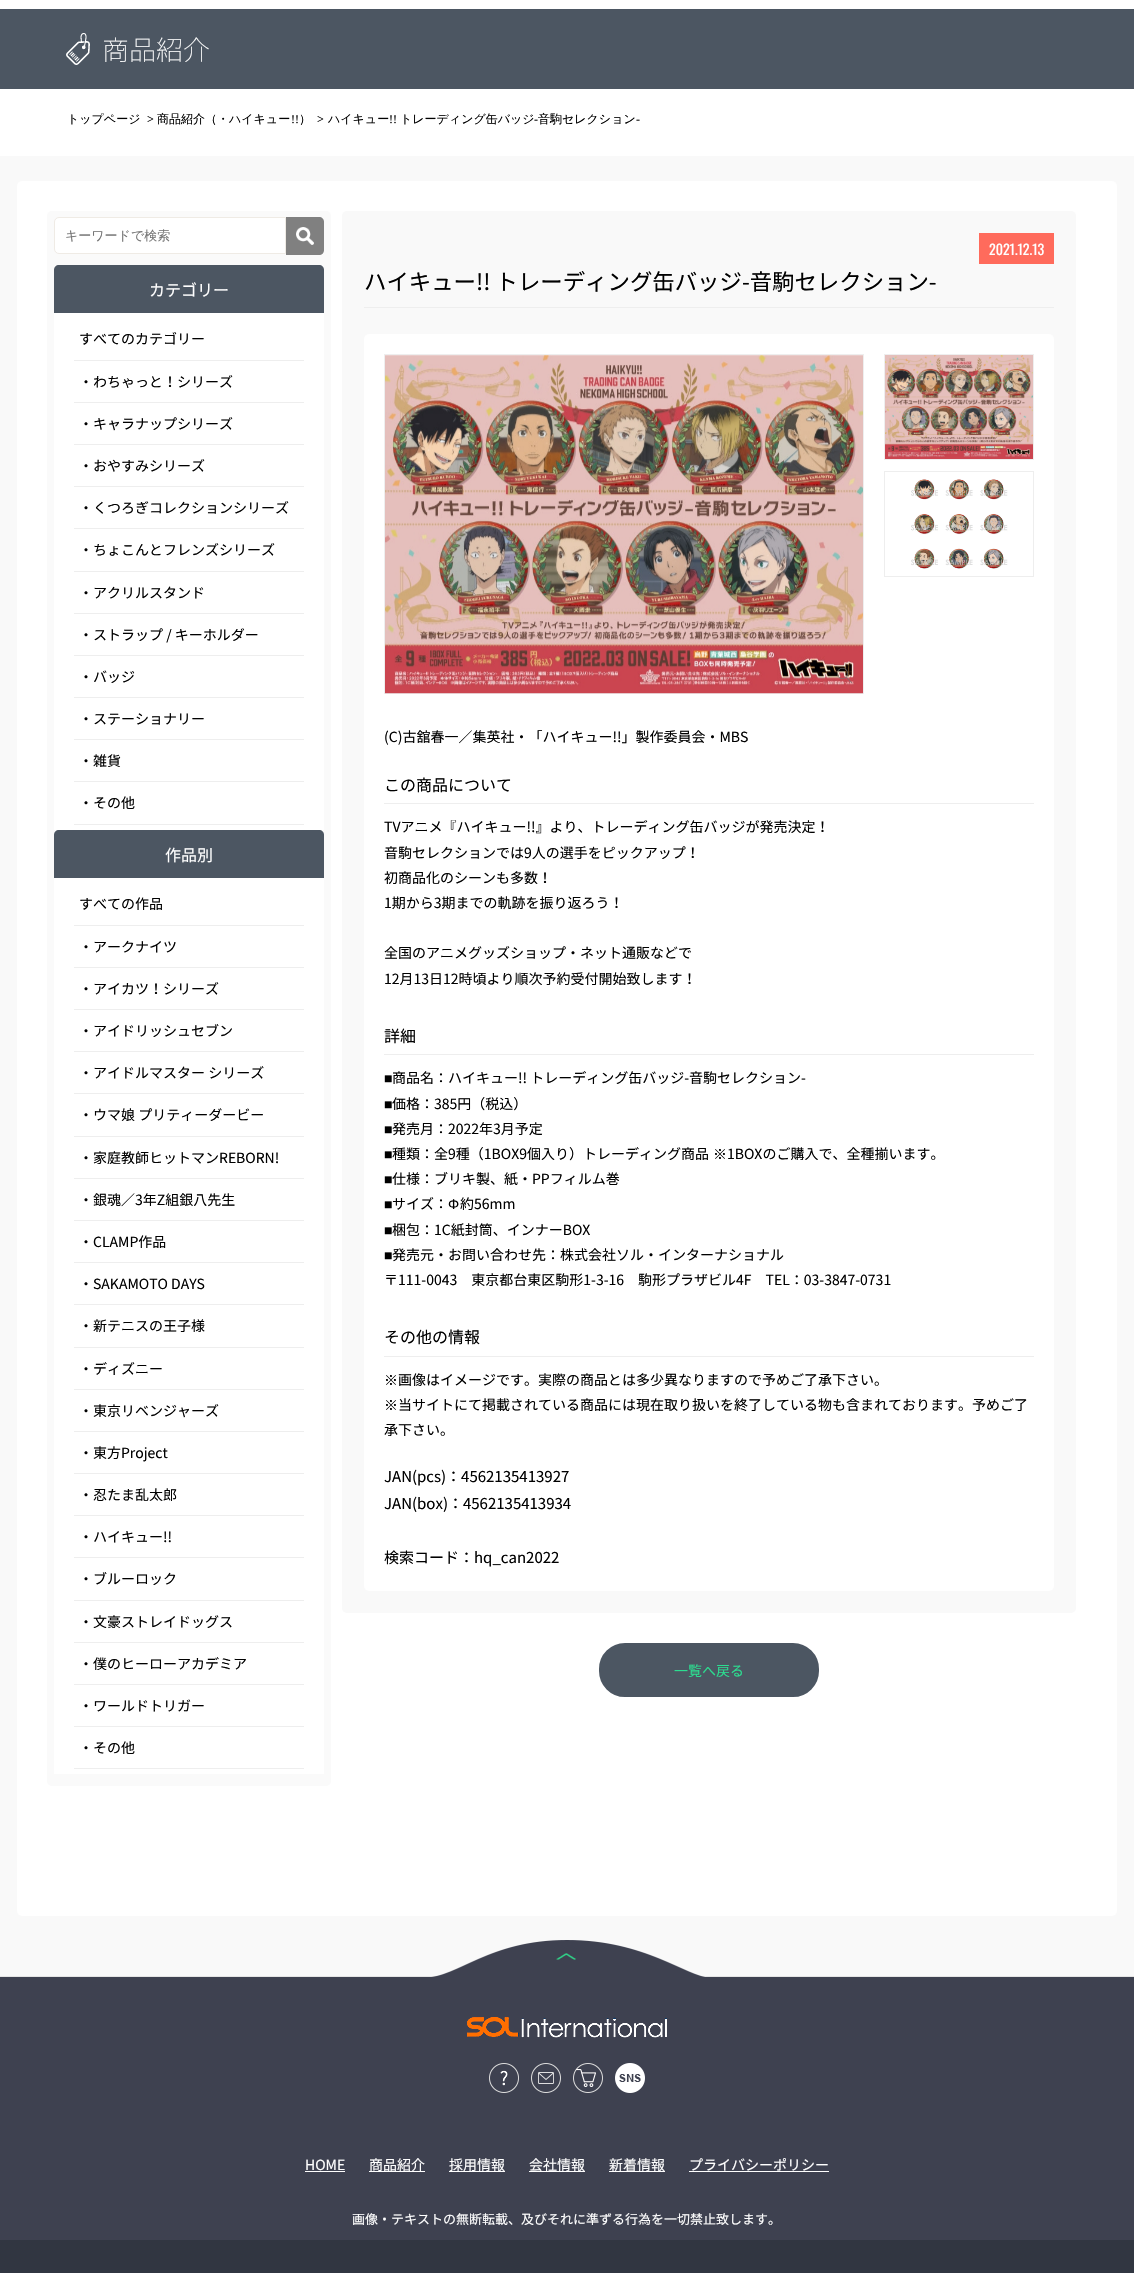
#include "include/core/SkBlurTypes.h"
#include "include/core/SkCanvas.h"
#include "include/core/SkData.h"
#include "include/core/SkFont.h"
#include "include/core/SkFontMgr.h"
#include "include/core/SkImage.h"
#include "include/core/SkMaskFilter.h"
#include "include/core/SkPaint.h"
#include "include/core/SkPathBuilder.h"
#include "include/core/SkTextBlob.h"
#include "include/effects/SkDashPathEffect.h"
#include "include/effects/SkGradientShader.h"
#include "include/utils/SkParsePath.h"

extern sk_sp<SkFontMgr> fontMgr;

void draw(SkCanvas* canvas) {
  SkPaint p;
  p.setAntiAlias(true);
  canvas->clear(SK_ColorWHITE);
  p.setColor(SkColorSetRGB(76, 86, 98));
  canvas->drawRect(SkRect::MakeLTRB(0, 9, 1134, 89), p);
  canvas->drawImageRect(SkImages::DeferredFromEncodedData(SkData::MakeFromFileName("images/1.png")), SkRect::MakeLTRB(66, 33, 90, 65), SkSamplingOptions());
  p.setColor(SkColorSetRGB(249, 249, 249));
  canvas->drawRect(SkRect::MakeLTRB(0, 156, 1134, 1976), p);
  p.setColor(SkColorSetRGB(229, 229, 229));
  canvas->drawRect(SkRect::MakeLTRB(0, 1976, 1134, 1977), p);
  p.setColor(SK_ColorWHITE);
  canvas->drawRoundRect(SkRect::MakeLTRB(17, 181, 1117, 1916), 5, 5, p);
  p.setColor(SkColorSetRGB(250, 250, 250));
  canvas->drawRoundRect(SkRect::MakeLTRB(47, 211, 331, 1786), 5, 5, p);
  p.setColor(SK_ColorWHITE);
  canvas->drawPath(SkPathBuilder().moveTo(59, 217.5f).lineTo(285.5f, 217.5f).lineTo(285.5f, 253.5f).lineTo(59, 253.5f).cubicTo(56.5f, 253.5f, 54.5f, 251.5f, 54.5f, 249).lineTo(54.5f, 222).cubicTo(54.5f, 219.5f, 56.5f, 217.5f, 59, 217.5f).close().detach(), p);
  p.setStyle(SkPaint::kStroke_Style);
  p.setStrokeWidth(1);
  p.setColor(SkColorSetRGB(239, 235, 229));
  canvas->drawPath(SkPathBuilder().moveTo(59, 217.5f).lineTo(285.5f, 217.5f).lineTo(285.5f, 253.5f).lineTo(59, 253.5f).cubicTo(56.5f, 253.5f, 54.5f, 251.5f, 54.5f, 249).lineTo(54.5f, 222).cubicTo(54.5f, 219.5f, 56.5f, 217.5f, 59, 217.5f).close().detach(), p);
  p.setStyle(SkPaint::kFill_Style);
  p.setColor(SkColorSetRGB(128, 128, 128));
  canvas->drawPath(SkPathBuilder().moveTo(286, 217).lineTo(319, 217).cubicTo(322, 217, 324, 219, 324, 222).lineTo(324, 250).cubicTo(324, 253, 322, 255, 319, 255).lineTo(286, 255).close().detach(), p);
  canvas->drawImageRect(SkImages::DeferredFromEncodedData(SkData::MakeFromFileName("images/2.png")), SkRect::MakeLTRB(296, 227, 314, 245), SkSamplingOptions());
  p.setColor(SkColorSetRGB(76, 86, 98));
  canvas->drawPath(SkPathBuilder().moveTo(59, 265).lineTo(319, 265).cubicTo(322, 265, 324, 267, 324, 270).lineTo(324, 313).lineTo(54, 313).lineTo(54, 270).cubicTo(54, 267, 56, 265, 59, 265).close().detach(), p);
  p.setColor(SK_ColorWHITE);
  canvas->drawRect(SkRect::MakeLTRB(54, 313, 324, 830), p);
  p.setColor(SkColorSetRGB(238, 238, 238));
  canvas->drawRect(SkRect::MakeLTRB(74, 360, 304, 361), p);
  canvas->drawRect(SkRect::MakeLTRB(74, 402, 304, 403), p);
  canvas->drawRect(SkRect::MakeLTRB(74, 444, 304, 445), p);
  canvas->drawRect(SkRect::MakeLTRB(74, 486, 304, 487), p);
  canvas->drawRect(SkRect::MakeLTRB(74, 528, 304, 529), p);
  canvas->drawRect(SkRect::MakeLTRB(74, 571, 304, 572), p);
  canvas->drawRect(SkRect::MakeLTRB(74, 613, 304, 614), p);
  canvas->drawRect(SkRect::MakeLTRB(74, 655, 304, 656), p);
  canvas->drawRect(SkRect::MakeLTRB(74, 697, 304, 698), p);
  canvas->drawRect(SkRect::MakeLTRB(74, 739, 304, 740), p);
  canvas->drawRect(SkRect::MakeLTRB(74, 781, 304, 782), p);
  canvas->drawRect(SkRect::MakeLTRB(74, 824, 304, 825), p);
  p.setColor(SkColorSetRGB(76, 86, 98));
  canvas->drawPath(SkPathBuilder().moveTo(59, 830).lineTo(319, 830).cubicTo(322, 830, 324, 832, 324, 835).lineTo(324, 878).lineTo(54, 878).lineTo(54, 835).cubicTo(54, 832, 56, 830, 59, 830).close().detach(), p);
  p.setColor(SK_ColorWHITE);
  canvas->drawRect(SkRect::MakeLTRB(54, 878, 324, 1774), p);
  p.setColor(SkColorSetRGB(238, 238, 238));
  canvas->drawRect(SkRect::MakeLTRB(74, 925, 304, 926), p);
  canvas->drawRect(SkRect::MakeLTRB(74, 967, 304, 968), p);
  canvas->drawRect(SkRect::MakeLTRB(74, 1009, 304, 1010), p);
  canvas->drawRect(SkRect::MakeLTRB(74, 1051, 304, 1052), p);
  canvas->drawRect(SkRect::MakeLTRB(74, 1093, 304, 1094), p);
  canvas->drawRect(SkRect::MakeLTRB(74, 1136, 304, 1137), p);
  canvas->drawRect(SkRect::MakeLTRB(74, 1178, 304, 1179), p);
  canvas->drawRect(SkRect::MakeLTRB(74, 1220, 304, 1221), p);
  canvas->drawRect(SkRect::MakeLTRB(74, 1262, 304, 1263), p);
  canvas->drawRect(SkRect::MakeLTRB(74, 1304, 304, 1305), p);
  canvas->drawRect(SkRect::MakeLTRB(74, 1347, 304, 1348), p);
  canvas->drawRect(SkRect::MakeLTRB(74, 1389, 304, 1390), p);
  canvas->drawRect(SkRect::MakeLTRB(74, 1431, 304, 1432), p);
  canvas->drawRect(SkRect::MakeLTRB(74, 1473, 304, 1474), p);
  canvas->drawRect(SkRect::MakeLTRB(74, 1515, 304, 1516), p);
  canvas->drawRect(SkRect::MakeLTRB(74, 1557, 304, 1558), p);
  canvas->drawRect(SkRect::MakeLTRB(74, 1600, 304, 1601), p);
  canvas->drawRect(SkRect::MakeLTRB(74, 1642, 304, 1643), p);
  canvas->drawRect(SkRect::MakeLTRB(74, 1684, 304, 1685), p);
  canvas->drawRect(SkRect::MakeLTRB(74, 1726, 304, 1727), p);
  canvas->drawRect(SkRect::MakeLTRB(74, 1768, 304, 1769), p);
  p.setColor(SkColorSetRGB(249, 249, 249));
  canvas->drawRoundRect(SkRect::MakeLTRB(342, 211, 1076, 1613), 5, 5, p);
  p.setColor(SkColorSetRGB(255, 107, 92));
  canvas->drawRect(SkRect::MakeLTRB(979, 233, 1054, 264), p);
  p.setColor(SkColorSetRGB(238, 238, 238));
  canvas->drawRect(SkRect::MakeLTRB(364, 307, 1054, 308), p);
  p.setColor(SK_ColorWHITE);
  canvas->drawRoundRect(SkRect::MakeLTRB(364, 334, 1054, 1591), 5, 5, p);
  p.setStyle(SkPaint::kStroke_Style);
  p.setColor(SkColorSetRGB(238, 238, 238));
  canvas->drawRect(SkRect::MakeLTRB(384.5f, 354.5f, 863.5f, 693.5f), p);
  canvas->drawImageRect(SkImages::DeferredFromEncodedData(SkData::MakeFromFileName("images/3.png")), SkRect::MakeLTRB(385, 355, 863, 694), SkSamplingOptions());
  canvas->drawImageRect(SkImages::DeferredFromEncodedData(SkData::MakeFromFileName("images/4.png")), SkRect::MakeLTRB(837, 668, 852, 683), SkSamplingOptions());
  canvas->drawRect(SkRect::MakeLTRB(884.5f, 354.5f, 1033.5f, 459.5f), p);
  canvas->drawImageRect(SkImages::DeferredFromEncodedData(SkData::MakeFromFileName("images/5.png")), SkRect::MakeLTRB(885, 355, 1033, 459), SkSamplingOptions());
  canvas->drawRect(SkRect::MakeLTRB(884.5f, 471.5f, 1033.5f, 576.5f), p);
  canvas->drawImageRect(SkImages::DeferredFromEncodedData(SkData::MakeFromFileName("images/6.png")), SkRect::MakeLTRB(911, 479, 1008, 569), SkSamplingOptions());
  p.setStyle(SkPaint::kFill_Style);
  canvas->drawRect(SkRect::MakeLTRB(384, 803, 1034, 804), p);
  canvas->drawRect(SkRect::MakeLTRB(384, 1054, 1034, 1055), p);
  canvas->drawRect(SkRect::MakeLTRB(384, 1356, 1034, 1357), p);
  p.setColor(SkColorSetRGB(76, 86, 98));
  canvas->drawRoundRect(SkRect::MakeLTRB(600, 1644, 818, 1696), 25, 25, p);
  p.setStyle(SkPaint::kStroke_Style);
  p.setStrokeWidth(2);
  canvas->drawRoundRect(SkRect::MakeLTRB(600, 1644, 818, 1696), 25, 25, p);
  p.setStyle(SkPaint::kFill_Style);
  p.setColor(SkColorSetRGB(62, 65, 80));
  canvas->drawRect(SkRect::MakeLTRB(0, 1977, 1134, 2240), p);
  canvas->drawImageRect(SkImages::DeferredFromEncodedData(SkData::MakeFromFileName("images/7.png")), SkRect::MakeLTRB(431, 1940, 705, 1977), SkSamplingOptions());
  canvas->drawImageRect(SkImages::DeferredFromEncodedData(SkData::MakeFromFileName("images/8.png")), SkRect::MakeLTRB(467, 2017, 667, 2038), SkSamplingOptions());
  canvas->drawImageRect(SkImages::DeferredFromEncodedData(SkData::MakeFromFileName("images/9.png")), SkRect::MakeLTRB(489, 2063, 519, 2093), SkSamplingOptions());
  canvas->drawImageRect(SkImages::DeferredFromEncodedData(SkData::MakeFromFileName("images/10.png")), SkRect::MakeLTRB(531, 2063, 561, 2093), SkSamplingOptions());
  canvas->drawImageRect(SkImages::DeferredFromEncodedData(SkData::MakeFromFileName("images/11.png")), SkRect::MakeLTRB(573, 2063, 603, 2093), SkSamplingOptions());
  canvas->drawImageRect(SkImages::DeferredFromEncodedData(SkData::MakeFromFileName("images/12.png")), SkRect::MakeLTRB(615, 2063, 645, 2093), SkSamplingOptions());
  p.setColor(SkColorSetRGB(49, 54, 65));
  canvas->drawRect(SkRect::MakeLTRB(0, 2240, 1134, 2273), p);
  p.setColor(SK_ColorWHITE);
  canvas->drawRect(SkRect::MakeLTRB(305, 2171, 345, 2172), p);
  canvas->drawRect(SkRect::MakeLTRB(369, 2171, 425, 2172), p);
  canvas->drawRect(SkRect::MakeLTRB(449, 2171, 505, 2172), p);
  canvas->drawRect(SkRect::MakeLTRB(529, 2171, 585, 2172), p);
  canvas->drawRect(SkRect::MakeLTRB(609, 2171, 665, 2172), p);
  canvas->drawRect(SkRect::MakeLTRB(689, 2171, 829, 2172), p);
  SkFont font1(fontMgr->matchFamilyStyle("Noto Sans JP", SkFontStyle(100, SkFontStyle::kNormal_Width, SkFontStyle::kUpright_Slant)), 27);
  font1.setSubpixel(true);
  canvas->drawString("商品紹介", 102, 60, font1, p);
  SkFont font2(fontMgr->matchFamilyStyle("WenQuanYi Zen Hei", SkFontStyle(500, SkFontStyle::kNormal_Width, SkFontStyle::kUpright_Slant)), 12);
  font2.setSubpixel(true);
  p.setColor(SK_ColorBLACK);
  canvas->drawString("トップページ", 67, 123, font2, p);
  SkFont font3(fontMgr->matchFamilyStyle("Liberation Serif", SkFontStyle::Normal()), 12);
  font3.setSubpixel(true);
  canvas->drawString(">", 147, 123, font3, p);
  canvas->drawString("商品紹介（・ハイキュー", 157, 123, font2, p);
  canvas->drawString("!!", 291, 123, font3, p);
  canvas->drawString("）", 299, 123, font2, p);
  canvas->drawString(">", 317, 123, font3, p);
  canvas->drawString("ハイキュー", 328, 123, font2, p);
  canvas->drawString("!!", 389, 123, font3, p);
  canvas->drawString("トレーディング缶バッジ", 400, 123, font2, p);
  canvas->drawString("-", 534, 123, font3, p);
  canvas->drawString("音駒セレクション", 538, 123, font2, p);
  canvas->drawString("-", 636, 123, font3, p);
  SkFont font4(fontMgr->matchFamilyStyle("WenQuanYi Zen Hei", SkFontStyle(500, SkFontStyle::kNormal_Width, SkFontStyle::kUpright_Slant)), 13);
  font4.setSubpixel(true);
  p.setColor(SkColorSetRGB(117, 117, 117));
  canvas->drawString("キーワードで検索", 65, 240, font4, p);
  SkFont font5(fontMgr->matchFamilyStyle("Noto Sans JP", SkFontStyle::Normal()), 16);
  font5.setSubpixel(true);
  p.setColor(SK_ColorWHITE);
  canvas->drawString("カテゴリー", 149, 296, font5, p);
  SkFont font6(fontMgr->matchFamilyStyle("Noto Sans JP", SkFontStyle::Normal()), 14);
  font6.setSubpixel(true);
  p.setColor(SK_ColorBLACK);
  canvas->drawString("すべてのカテゴリー", 79, 344, font6, p);
  canvas->drawString("・わちゃっと！シリーズ", 79, 387, font6, p);
  canvas->drawString("・キャラナップシリーズ", 79, 429, font6, p);
  canvas->drawString("・おやすみシリーズ", 79, 471, font6, p);
  canvas->drawString("・くつろぎコレクションシリーズ", 79, 513, font6, p);
  canvas->drawString("・ちょこんとフレンズシリーズ", 79, 555, font6, p);
  canvas->drawString("・アクリルスタンド", 79, 598, font6, p);
  canvas->drawString("・ストラップ / キーホルダー", 79, 640, font6, p);
  canvas->drawString("・バッジ", 79, 682, font6, p);
  canvas->drawString("・ステーショナリー", 79, 724, font6, p);
  canvas->drawString("・雑貨", 79, 766, font6, p);
  canvas->drawString("・その他", 79, 808, font6, p);
  p.setColor(SK_ColorWHITE);
  canvas->drawString("作品別", 165, 861, font5, p);
  p.setColor(SK_ColorBLACK);
  canvas->drawString("すべての作品", 79, 909, font6, p);
  canvas->drawString("・アークナイツ", 79, 952, font6, p);
  canvas->drawString("・アイカツ！シリーズ", 79, 994, font6, p);
  canvas->drawString("・アイドリッシュセブン", 79, 1036, font6, p);
  canvas->drawString("・アイドルマスター シリーズ", 79, 1078, font6, p);
  canvas->drawString("・ウマ娘 プリティーダービー", 79, 1120, font6, p);
  canvas->drawString("・家庭教師ヒットマンREBORN!", 79, 1163, font6, p);
  canvas->drawString("・銀魂／3年Z組銀八先生", 79, 1205, font6, p);
  canvas->drawString("・CLAMP作品", 79, 1247, font6, p);
  canvas->drawString("・SAKAMOTO DAYS", 79, 1289, font6, p);
  canvas->drawString("・新テニスの王子様", 79, 1331, font6, p);
  canvas->drawString("・ディズニー", 79, 1374, font6, p);
  canvas->drawString("・東京リベンジャーズ", 79, 1416, font6, p);
  canvas->drawString("・東方Project", 79, 1458, font6, p);
  canvas->drawString("・忍たま乱太郎", 79, 1500, font6, p);
  canvas->drawString("・ハイキュー!!", 79, 1542, font6, p);
  canvas->drawString("・ブルーロック", 79, 1584, font6, p);
  canvas->drawString("・文豪ストレイドッグス", 79, 1627, font6, p);
  canvas->drawString("・僕のヒーローアカデミア", 79, 1669, font6, p);
  canvas->drawString("・ワールドトリガー", 79, 1711, font6, p);
  canvas->drawString("・その他", 79, 1753, font6, p);
  SkFont font7(fontMgr->matchFamilyStyle("Oswald", SkFontStyle::Normal()), 14);
  font7.setSubpixel(true);
  p.setColor(SK_ColorWHITE);
  canvas->drawString("2021.12.13", 989, 255, font7, p);
  SkFont font8(fontMgr->matchFamilyStyle("Noto Sans JP", SkFontStyle::Normal()), 22.4f);
  font8.setSubpixel(true);
  p.setColor(SK_ColorBLACK);
  canvas->drawString("ハイキュー!! トレーディング缶バッジ-音駒セレクション-", 364, 290, font8, p);
  canvas->drawString("(C)古舘春一／集英社・「ハイキュー!!」製作委員会・MBS", 384, 742, font6, p);
  canvas->drawString("この商品について", 384, 791, font5, p);
  canvas->drawString("TVアニメ『ハイキュー!!』より、トレーディング缶バッジが発売決定！", 384, 832, font6, p);
  canvas->drawString("音駒セレクションでは9人の選手をピックアップ！", 384, 858, font6, p);
  canvas->drawString("初商品化のシーンも多数！", 384, 883, font6, p);
  canvas->drawString("1期から3期までの軌跡を振り返ろう！", 384, 908, font6, p);
  canvas->drawString("全国のアニメグッズショップ・ネット通販などで", 384, 958, font6, p);
  canvas->drawString("12月13日12時頃より順次予約受付開始致します！", 384, 984, font6, p);
  canvas->drawString("詳細", 384, 1042, font5, p);
  SkFont font9(fontMgr->matchFamilyStyle("Liberation Sans", SkFontStyle::Normal()), 14);
  font9.setSubpixel(true);
  canvas->drawString("■", 384, 1083, font9, p);
  canvas->drawString("商品名：ハイキュー!! トレーディング缶バッジ-音駒セレクション-", 392, 1083, font6, p);
  canvas->drawString("■", 384, 1109, font9, p);
  canvas->drawString("価格：385円（税込）", 392, 1109, font6, p);
  canvas->drawString("■", 384, 1134, font9, p);
  canvas->drawString("発売月：2022年3月予定", 392, 1134, font6, p);
  canvas->drawString("■", 384, 1159, font9, p);
  canvas->drawString("種類：全9種（1BOX9個入り）トレーディング商品", 392, 1159, font6, p);
  SkFont font10(fontMgr->matchFamilyStyle("WenQuanYi Zen Hei", SkFontStyle(500, SkFontStyle::kNormal_Width, SkFontStyle::kUpright_Slant)), 14);
  font10.setSubpixel(true);
  canvas->drawString("※", 713, 1159, font10, p);
  canvas->drawString("1BOXのご購入で、全種揃います。", 727, 1159, font6, p);
  canvas->drawString("■", 384, 1184, font9, p);
  canvas->drawString("仕様：ブリキ製、紙・PPフィルム巻", 392, 1184, font6, p);
  canvas->drawString("■", 384, 1209, font9, p);
  canvas->drawString("サイズ：", 392, 1209, font6, p);
  canvas->drawString("Φ", 448, 1209, font9, p);
  canvas->drawString("約56mm", 460, 1209, font6, p);
  canvas->drawString("■", 384, 1235, font9, p);
  canvas->drawString("梱包：1C紙封筒、インナーBOX", 392, 1235, font6, p);
  canvas->drawString("■", 384, 1260, font9, p);
  canvas->drawString("発売元・お問い合わせ先：株式会社ソル・インターナショナル", 392, 1260, font6, p);
  canvas->drawString("〒111-0043　東京都台東区駒形1-3-16　駒形プラザビル4F　TEL：03-3847-0731", 384, 1285, font6, p);
  canvas->drawString("その他の情報", 384, 1343, font5, p);
  canvas->drawString("※", 384, 1385, font10, p);
  canvas->drawString("画像はイメージです。実際の商品とは多少異なりますので予めご了承下さい。", 398, 1385, font6, p);
  canvas->drawString("※", 384, 1410, font10, p);
  canvas->drawString("当サイトにて掲載されている商品には現在取り扱いを終了している物も含まれております。予めご了", 398, 1410, font6, p);
  canvas->drawString("承下さい。", 384, 1435, font6, p);
  SkFont font11(fontMgr->matchFamilyStyle("Noto Sans JP", SkFontStyle::Normal()), 15);
  font11.setSubpixel(true);
  canvas->drawString("JAN(pcs)：4562135413927", 384, 1482, font11, p);
  canvas->drawString("JAN(box)：4562135413934", 384, 1509, font11, p);
  canvas->drawString("検索コード：hq_can2022", 384, 1563, font11, p);
  p.setColor(SkColorSetRGB(44, 221, 144));
  canvas->drawString("一覧へ戻る", 674, 1676, font6, p);
  p.setColor(SK_ColorWHITE);
  canvas->drawString("HOME", 305, 2170, font6, p);
  canvas->drawString("商品紹介", 369, 2170, font6, p);
  canvas->drawString("採用情報", 449, 2170, font6, p);
  canvas->drawString("会社情報", 529, 2170, font6, p);
  canvas->drawString("新着情報", 609, 2170, font6, p);
  canvas->drawString("プライバシーポリシー", 689, 2170, font6, p);
  SkFont font12(fontMgr->matchFamilyStyle("Noto Sans JP", SkFontStyle::Normal()), 13);
  font12.setSubpixel(true);
  canvas->drawString("画像・テキストの無断転載、及びそれに準ずる行為を一切禁止致します。", 352, 2224, font12, p);
}
